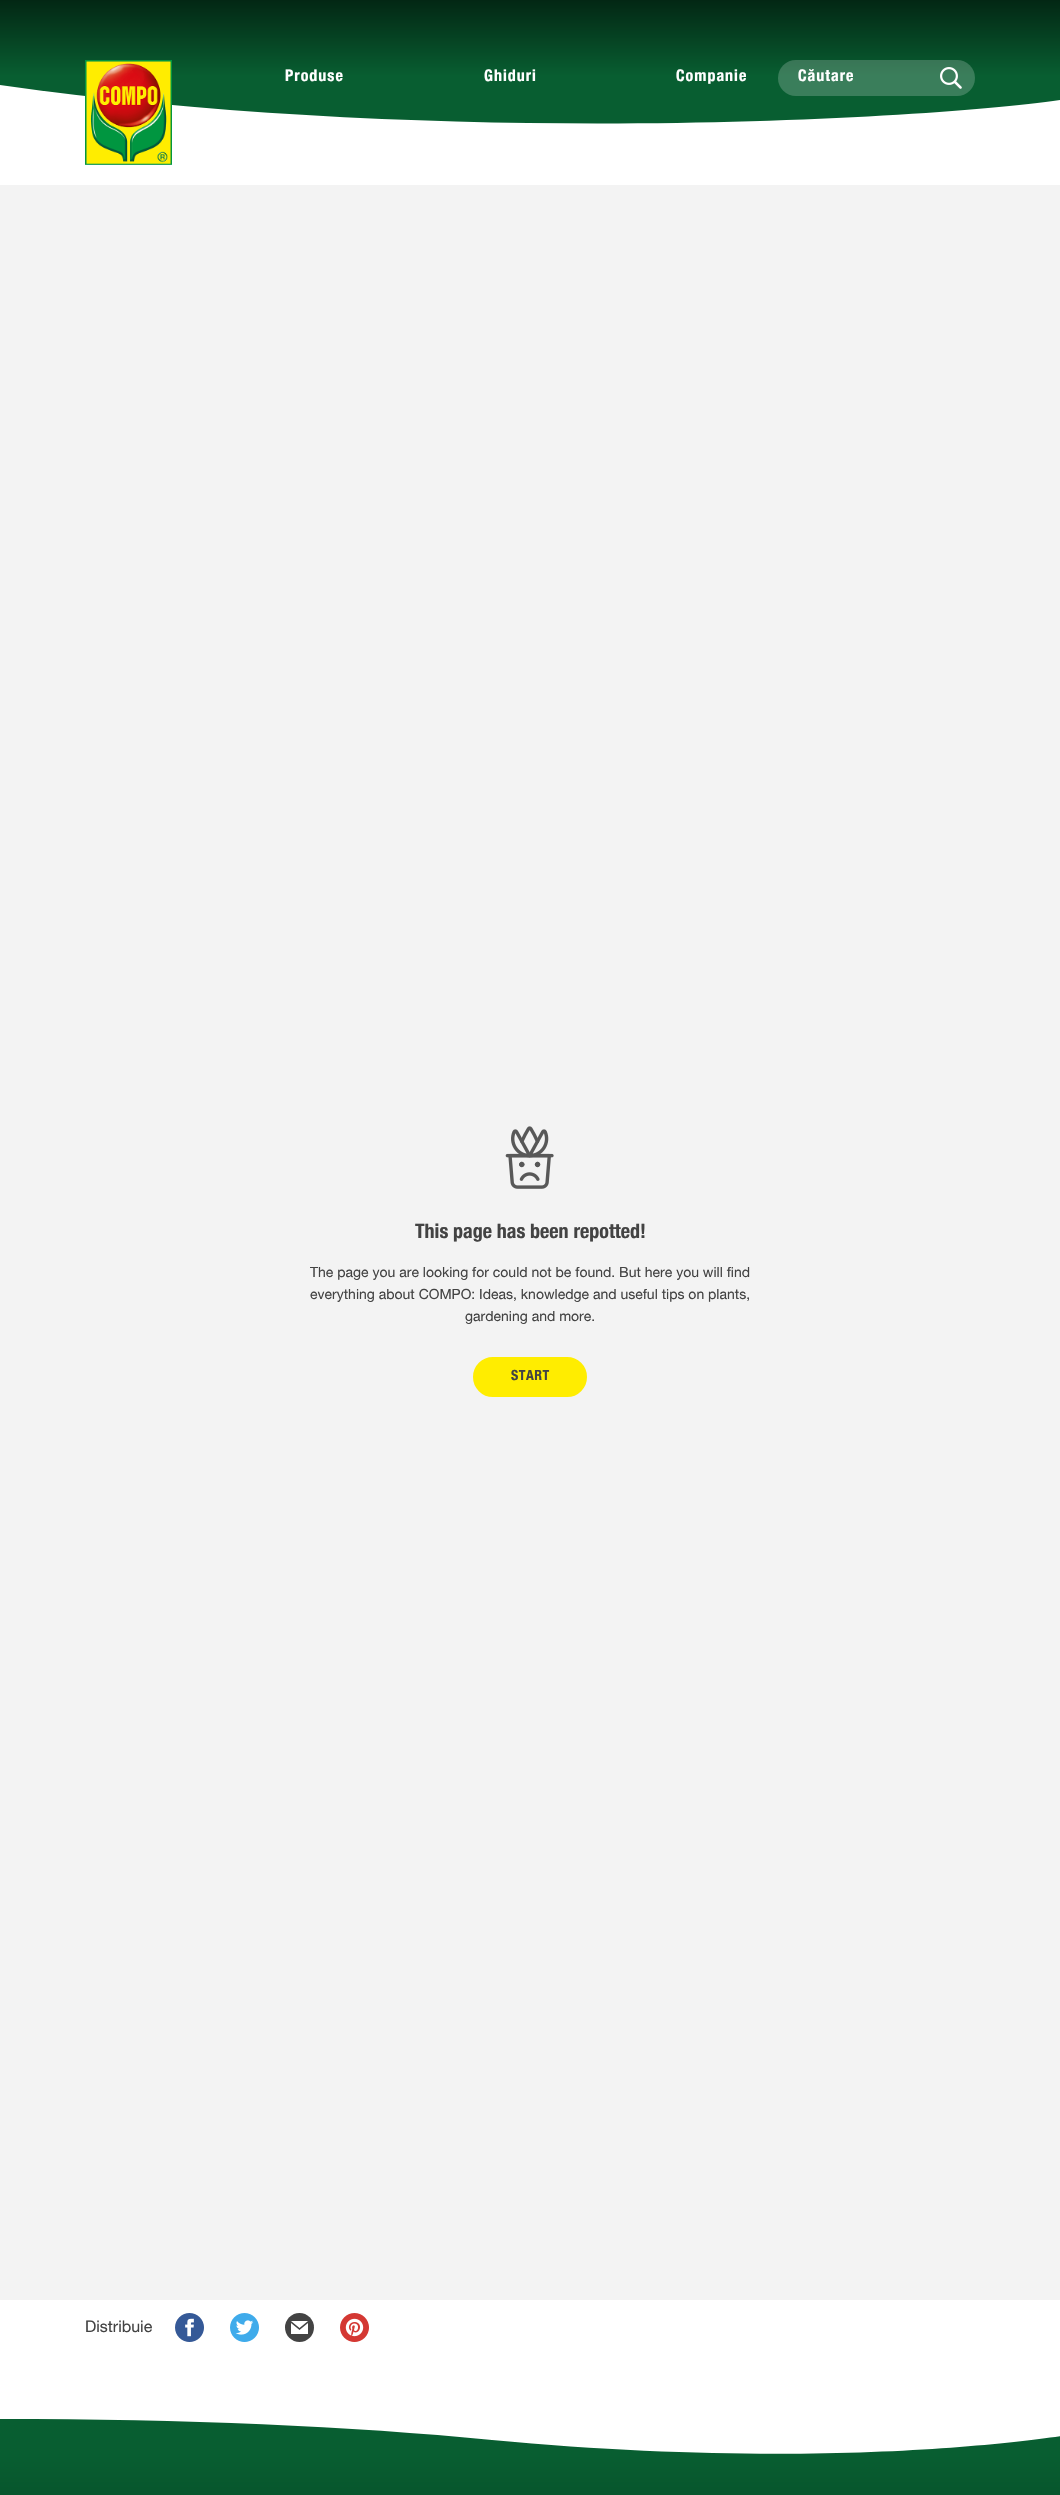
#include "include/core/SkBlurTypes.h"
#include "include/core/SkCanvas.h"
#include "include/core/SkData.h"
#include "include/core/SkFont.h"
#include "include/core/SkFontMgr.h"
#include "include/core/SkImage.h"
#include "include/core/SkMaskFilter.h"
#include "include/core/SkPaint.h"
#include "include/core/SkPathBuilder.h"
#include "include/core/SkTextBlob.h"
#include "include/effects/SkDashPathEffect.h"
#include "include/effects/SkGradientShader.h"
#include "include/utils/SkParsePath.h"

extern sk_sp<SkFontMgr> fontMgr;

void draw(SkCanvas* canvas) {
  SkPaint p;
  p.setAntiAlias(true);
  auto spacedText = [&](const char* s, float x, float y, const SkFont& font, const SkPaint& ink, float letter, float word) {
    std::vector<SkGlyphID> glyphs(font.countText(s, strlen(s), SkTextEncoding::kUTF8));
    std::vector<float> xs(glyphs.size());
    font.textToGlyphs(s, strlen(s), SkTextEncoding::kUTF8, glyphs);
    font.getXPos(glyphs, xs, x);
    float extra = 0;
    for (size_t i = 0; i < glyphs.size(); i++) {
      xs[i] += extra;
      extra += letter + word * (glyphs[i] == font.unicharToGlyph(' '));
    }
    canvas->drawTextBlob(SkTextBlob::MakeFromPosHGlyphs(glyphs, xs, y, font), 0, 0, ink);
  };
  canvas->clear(SK_ColorWHITE);
  {
    const SkColor colors[] = {SkColorSetRGB(3, 39, 20), SkColorSetRGB(8, 94, 49), SkColorSetRGB(8, 94, 49)};
    const float stops[] = {0, 0.95f, 1};
    const SkPoint ends[] = {{530, 0}, {530, 80}};
    p.setShader(SkGradientShader::MakeLinear(ends, colors, stops, 3, SkTileMode::kClamp));
    p.setAlpha(255);
  }
  canvas->drawRect(SkRect::MakeLTRB(0, 0, 1060, 79), p);
  p.setShader(nullptr);
  p.setColor(SkColorSetRGB(8, 94, 49));
  canvas->drawPath(SkPathBuilder().moveTo(0, 79).lineTo(0, 85).cubicTo(441, 148, 928, 119, 1060, 100).lineTo(1060, 79).close().detach(), p);
  canvas->drawImageRect(SkImages::DeferredFromEncodedData(SkData::MakeFromFileName("images/1.png")), SkRect::MakeLTRB(85, 60, 172, 165), SkSamplingOptions());
  p.setColor(SkColorSetARGB(51, 255, 255, 255));
  canvas->drawRoundRect(SkRect::MakeLTRB(778, 60, 975, 96), 18, 18, p);
  canvas->drawImageRect(SkImages::DeferredFromEncodedData(SkData::MakeFromFileName("images/2.png")), SkRect::MakeLTRB(940, 67, 962, 89), SkSamplingOptions());
  p.setColor(SkColorSetRGB(243, 243, 243));
  canvas->drawRect(SkRect::MakeLTRB(0, 185, 1060, 2300), p);
  canvas->drawImageRect(SkImages::DeferredFromEncodedData(SkData::MakeFromFileName("images/3.png")), SkRect::MakeLTRB(505, 1126, 554, 1189), SkSamplingOptions());
  p.setColor(SkColorSetRGB(255, 237, 0));
  canvas->drawRoundRect(SkRect::MakeLTRB(474, 1358, 586, 1396), 19, 19, p);
  p.setStyle(SkPaint::kStroke_Style);
  p.setStrokeWidth(2);
  canvas->drawRoundRect(SkRect::MakeLTRB(474, 1358, 586, 1396), 19, 19, p);
  canvas->drawImageRect(SkImages::DeferredFromEncodedData(SkData::MakeFromFileName("images/4.png")), SkRect::MakeLTRB(175, 2313, 204, 2342), SkSamplingOptions());
  canvas->drawImageRect(SkImages::DeferredFromEncodedData(SkData::MakeFromFileName("images/5.png")), SkRect::MakeLTRB(230, 2313, 259, 2342), SkSamplingOptions());
  p.setStyle(SkPaint::kFill_Style);
  p.setColor(SkColorSetRGB(67, 67, 67));
  canvas->drawCircle(299.5f, 2327.5f, 14.5f, p);
  p.setColor(SK_ColorWHITE);
  canvas->drawPath(SkPathBuilder().moveTo(299.5f, 2328).lineTo(291, 2321).lineTo(308, 2321).close().moveTo(299.5f, 2330).lineTo(291, 2323).lineTo(291, 2334).lineTo(308, 2334).lineTo(308, 2323).close().detach(), p);
  canvas->drawImageRect(SkImages::DeferredFromEncodedData(SkData::MakeFromFileName("images/6.png")), SkRect::MakeLTRB(340, 2313, 369, 2342), SkSamplingOptions());
  {
    const SkColor colors[] = {SkColorSetRGB(8, 94, 49), SkColorSetRGB(3, 39, 20)};
    const float stops[] = {0, 1};
    const SkPoint ends[] = {{530, 2455}, {530, 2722}};
    p.setShader(SkGradientShader::MakeLinear(ends, colors, stops, 2, SkTileMode::kClamp));
    p.setAlpha(255);
  }
  canvas->drawRect(SkRect::MakeLTRB(0, 2457, 1060, 2495), p);
  p.setShader(nullptr);
  p.setColor(SkColorSetRGB(8, 94, 49));
  canvas->drawPath(SkPathBuilder(SkPathFillType::kEvenOdd).moveTo(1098, 2457).lineTo(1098, 2430).cubicTo(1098, 2430, 875, 2476, 492, 2440).cubicTo(349, 2426, 183, 2419, -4, 2419).lineTo(-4, 2457).close().detach(), p);
  SkFont font1(fontMgr->matchFamilyStyle("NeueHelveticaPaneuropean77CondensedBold", SkFontStyle::Bold()), 16);
  font1.setSubpixel(true);
  p.setColor(SK_ColorWHITE);
  spacedText("Produse", 285, 81, font1, p, 1, 0);
  spacedText("Ghiduri", 484, 81, font1, p, 1, 0);
  spacedText("Companie", 676, 81, font1, p, 1, 0);
  spacedText("Căutare", 798, 81, font1, p, 1, 0);
  SkFont font2(fontMgr->matchFamilyStyle("NeueHelveticaPaneuropean77CondensedBold", SkFontStyle::Bold()), 20);
  font2.setSubpixel(true);
  p.setColor(SkColorSetRGB(67, 67, 67));
  canvas->drawString("This page has been repotted!", 415, 1238, font2, p);
  SkFont font3(fontMgr->matchFamilyStyle("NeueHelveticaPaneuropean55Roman", SkFontStyle::Normal()), 14);
  font3.setSubpixel(true);
  canvas->drawString("The page you are looking for could not be found. But here you will find", 310, 1277, font3, p);
  canvas->drawString("everything about COMPO: Ideas, knowledge and useful tips on plants,", 310, 1299, font3, p);
  canvas->drawString("gardening and more.", 465, 1321, font3, p);
  SkFont font4(fontMgr->matchFamilyStyle("NeueHelveticaPaneuropean77CondensedBold", SkFontStyle::Bold()), 14);
  font4.setSubpixel(true);
  spacedText("START", 511, 1380, font4, p, 0.5f, 0);
  SkFont font5(fontMgr->matchFamilyStyle("NeueHelveticaPaneuropean55Roman", SkFontStyle::Normal()), 16);
  font5.setSubpixel(true);
  canvas->drawString("Distribuie", 85, 2332, font5, p);
}
